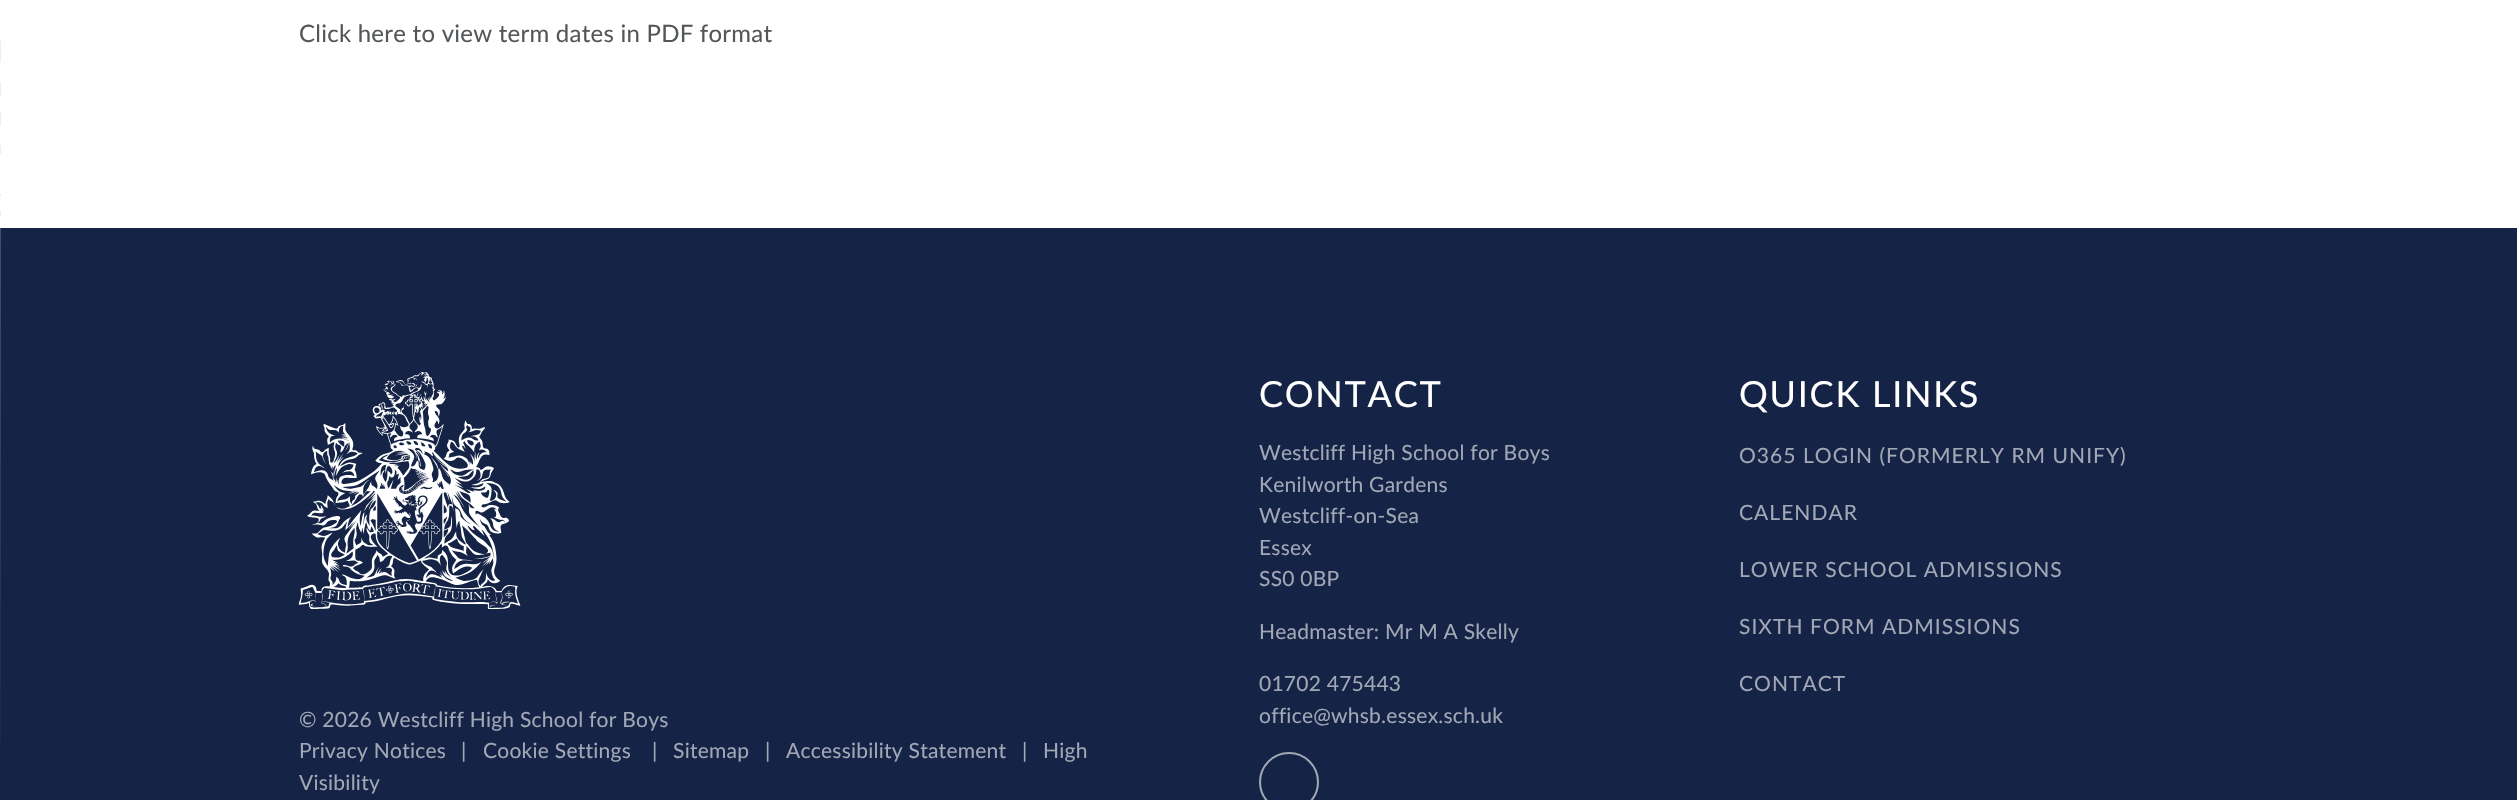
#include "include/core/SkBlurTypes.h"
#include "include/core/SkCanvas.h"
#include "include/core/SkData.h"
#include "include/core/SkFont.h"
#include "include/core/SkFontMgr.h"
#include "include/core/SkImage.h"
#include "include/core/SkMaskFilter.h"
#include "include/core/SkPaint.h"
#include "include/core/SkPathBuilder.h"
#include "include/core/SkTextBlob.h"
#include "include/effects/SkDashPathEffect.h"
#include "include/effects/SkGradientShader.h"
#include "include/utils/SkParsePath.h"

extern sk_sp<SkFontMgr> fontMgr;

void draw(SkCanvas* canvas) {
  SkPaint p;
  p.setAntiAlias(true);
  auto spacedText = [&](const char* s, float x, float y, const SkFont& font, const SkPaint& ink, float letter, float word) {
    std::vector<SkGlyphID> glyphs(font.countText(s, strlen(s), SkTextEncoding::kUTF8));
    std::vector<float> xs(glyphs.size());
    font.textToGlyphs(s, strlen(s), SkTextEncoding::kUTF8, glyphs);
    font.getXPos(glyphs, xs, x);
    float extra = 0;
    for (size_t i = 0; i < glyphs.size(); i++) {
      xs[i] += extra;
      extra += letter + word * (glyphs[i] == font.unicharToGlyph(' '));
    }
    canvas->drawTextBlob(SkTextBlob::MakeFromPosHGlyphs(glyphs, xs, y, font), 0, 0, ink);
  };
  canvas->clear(SK_ColorWHITE);
  p.setColor(SkColorSetRGB(21, 36, 70));
  canvas->drawRect(SkRect::MakeLTRB(0, 228, 2517, 800), p);
  canvas->drawImageRect(SkImages::DeferredFromEncodedData(SkData::MakeFromFileName("images/1.png")), SkRect::MakeLTRB(0, 40, 1, 748), SkSamplingOptions());
  p.setStyle(SkPaint::kStroke_Style);
  p.setStrokeWidth(2);
  p.setColor(SkColorSetRGB(161, 167, 181));
  canvas->drawCircle(1289, 782, 29, p);
  canvas->drawImageRect(SkImages::DeferredFromEncodedData(SkData::MakeFromFileName("images/2.png")), SkRect::MakeLTRB(298, 372, 521, 609), SkSamplingOptions());
  SkFont font1(fontMgr->matchFamilyStyle("Lato", SkFontStyle::Normal()), 24);
  font1.setSubpixel(true);
  p.setStyle(SkPaint::kFill_Style);
  p.setColor(SkColorSetRGB(84, 87, 90));
  spacedText("Click here to view term dates in PDF format", 299, 42, font1, p, 0.25f, 0);
  SkFont font2(fontMgr->matchFamilyStyle("Lato", SkFontStyle::Normal()), 36);
  font2.setSubpixel(true);
  p.setColor(SK_ColorWHITE);
  spacedText("CONTACT", 1259, 407, font2, p, 1.75f, 0);
  SkFont font3(fontMgr->matchFamilyStyle("Lato", SkFontStyle::Normal()), 21);
  font3.setSubpixel(true);
  p.setColor(SkColorSetRGB(161, 167, 181));
  spacedText("Westcliff High School for Boys", 1259, 460, font3, p, 0.25f, 0);
  spacedText("Kenilworth Gardens", 1259, 492, font3, p, 0.25f, 0);
  spacedText("Westcliff-on-Sea", 1259, 523, font3, p, 0.25f, 0);
  spacedText("Essex", 1259, 555, font3, p, 0.25f, 0);
  spacedText("SS0 0BP", 1259, 586, font3, p, 0.25f, 0);
  spacedText("Headmaster: Mr M A Skelly", 1259, 639, font3, p, 0.25f, 0);
  spacedText("01702 475443", 1259, 691, font3, p, 0.25f, 0);
  spacedText("office@whsb.essex.sch.uk", 1259, 723, font3, p, 0.25f, 0);
  p.setColor(SK_ColorWHITE);
  spacedText("QUICK LINKS", 1739, 407, font2, p, 1.75f, 0);
  p.setColor(SkColorSetRGB(161, 167, 181));
  spacedText("O365 LOGIN (FORMERLY RM UNIFY)", 1739, 463, font3, p, 1.05f, 0);
  spacedText("CALENDAR", 1739, 520, font3, p, 1.05f, 0);
  spacedText("LOWER SCHOOL ADMISSIONS", 1739, 577, font3, p, 1.05f, 0);
  spacedText("SIXTH FORM ADMISSIONS", 1739, 634, font3, p, 1.05f, 0);
  spacedText("CONTACT", 1739, 691, font3, p, 1.05f, 0);
  spacedText("© 2026 Westcliff High School for Boys", 299, 727, font3, p, 0.25f, 0);
  spacedText("Privacy Notices", 299, 758, font3, p, 0.25f, 0);
  spacedText("|", 461, 758, font3, p, 0.25f, 0);
  spacedText("Cookie Settings", 483, 758, font3, p, 0.25f, 0);
  spacedText("|", 652, 758, font3, p, 0.25f, 0);
  spacedText("Sitemap", 673, 758, font3, p, 0.25f, 0);
  spacedText("|", 765, 758, font3, p, 0.25f, 0);
  spacedText("Accessibility Statement", 786, 758, font3, p, 0.25f, 0);
  spacedText("|", 1022, 758, font3, p, 0.25f, 0);
  spacedText("High", 1043, 758, font3, p, 0.25f, 0);
  spacedText("Visibility", 299, 790, font3, p, 0.25f, 0);
}
